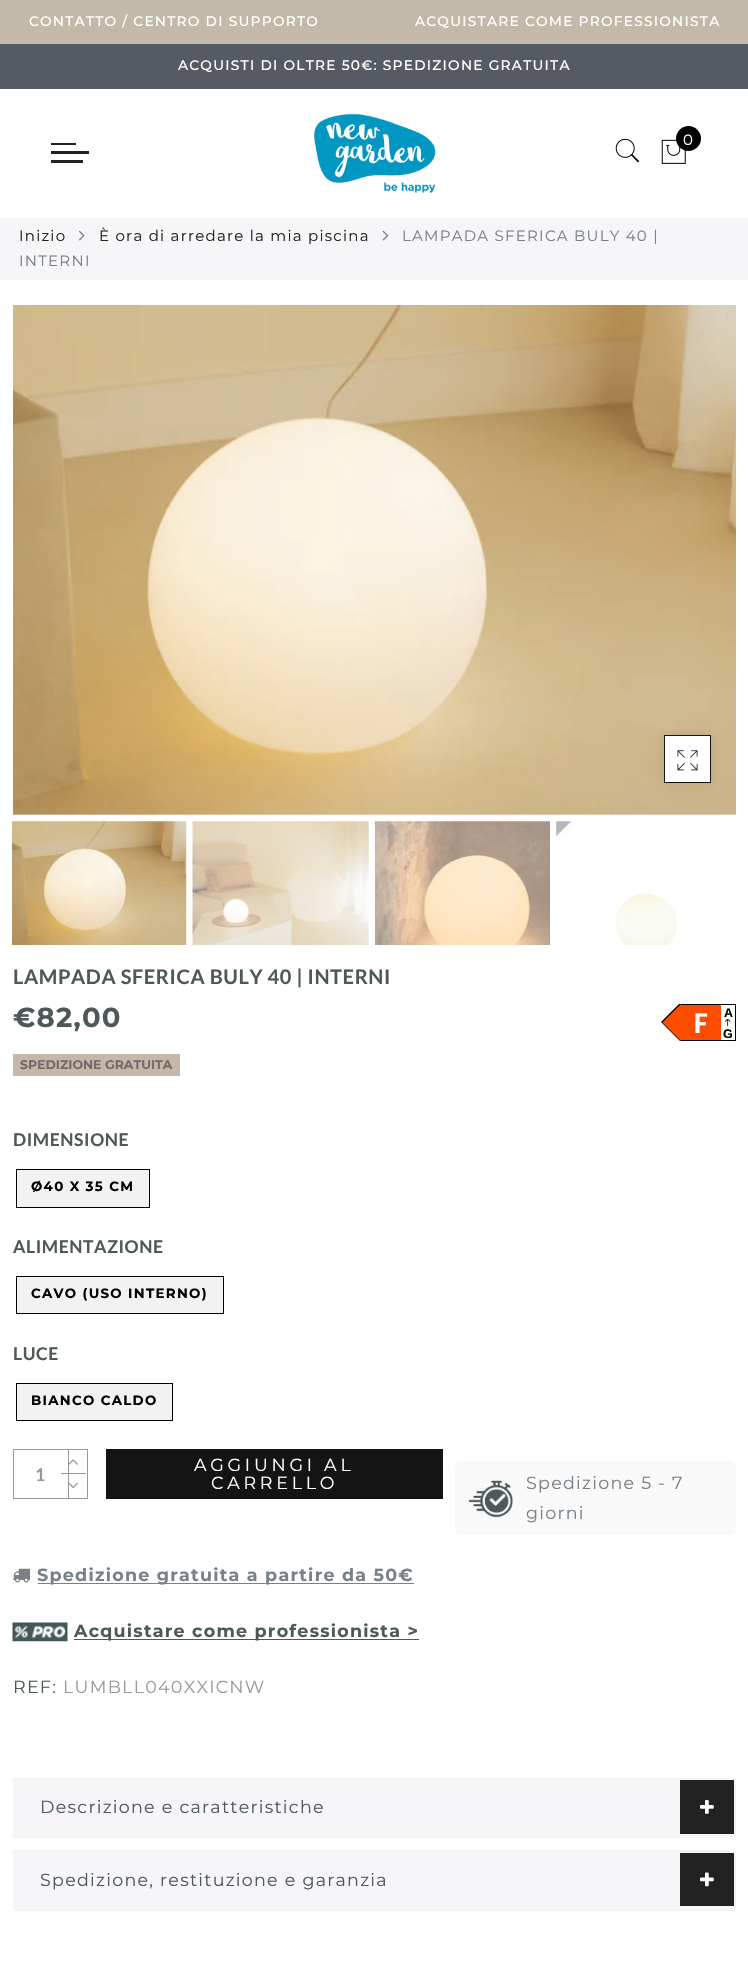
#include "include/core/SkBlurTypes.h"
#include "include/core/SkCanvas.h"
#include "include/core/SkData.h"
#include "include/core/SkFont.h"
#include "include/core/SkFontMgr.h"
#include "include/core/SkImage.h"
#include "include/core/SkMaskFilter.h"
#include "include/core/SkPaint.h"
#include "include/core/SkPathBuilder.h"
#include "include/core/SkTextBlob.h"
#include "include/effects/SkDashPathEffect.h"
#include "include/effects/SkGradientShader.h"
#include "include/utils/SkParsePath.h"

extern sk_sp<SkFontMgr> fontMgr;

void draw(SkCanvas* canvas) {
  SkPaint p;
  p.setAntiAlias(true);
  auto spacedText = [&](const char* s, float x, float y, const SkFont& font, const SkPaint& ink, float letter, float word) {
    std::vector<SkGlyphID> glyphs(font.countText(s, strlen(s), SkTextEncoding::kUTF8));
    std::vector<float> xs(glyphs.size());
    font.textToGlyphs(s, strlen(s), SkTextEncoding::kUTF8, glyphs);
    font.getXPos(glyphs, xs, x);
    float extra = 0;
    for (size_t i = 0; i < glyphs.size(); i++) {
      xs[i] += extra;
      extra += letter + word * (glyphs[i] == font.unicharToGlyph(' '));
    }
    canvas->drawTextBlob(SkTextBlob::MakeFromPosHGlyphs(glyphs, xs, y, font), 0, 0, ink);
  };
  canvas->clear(SK_ColorWHITE);
  p.setColor(SkColorSetRGB(194, 185, 168));
  canvas->drawRect(SkRect::MakeLTRB(0, 0, 748, 44), p);
  p.setColor(SkColorSetRGB(86, 91, 99));
  canvas->drawRect(SkRect::MakeLTRB(0, 44, 748, 89), p);
  canvas->drawImageRect(SkImages::DeferredFromEncodedData(SkData::MakeFromFileName("images/1.png")), SkRect::MakeLTRB(314, 113, 436, 193), SkSamplingOptions());
  canvas->drawImageRect(SkImages::DeferredFromEncodedData(SkData::MakeFromFileName("images/2.png")), SkRect::MakeLTRB(615, 138, 640, 163), SkSamplingOptions());
  canvas->drawImageRect(SkImages::DeferredFromEncodedData(SkData::MakeFromFileName("images/3.png")), SkRect::MakeLTRB(661, 139, 686, 164), SkSamplingOptions());
  p.setColor(SK_ColorBLACK);
  canvas->drawCircle(688.5f, 138.5f, 12.5f, p);
  p.setColor(SkColorSetRGB(34, 34, 34));
  canvas->drawRect(SkRect::MakeLTRB(51, 143, 76, 145), p);
  canvas->drawRect(SkRect::MakeLTRB(51, 151, 89, 154), p);
  canvas->drawRect(SkRect::MakeLTRB(51, 160, 83, 163), p);
  p.setColor(SkColorSetRGB(246, 246, 248));
  canvas->drawRect(SkRect::MakeLTRB(0, 218, 748, 280), p);
  canvas->drawImageRect(SkImages::DeferredFromEncodedData(SkData::MakeFromFileName("images/4.png")), SkRect::MakeLTRB(78, 230, 85, 241), SkSamplingOptions());
  canvas->drawImageRect(SkImages::DeferredFromEncodedData(SkData::MakeFromFileName("images/5.png")), SkRect::MakeLTRB(382, 230, 389, 241), SkSamplingOptions());
  canvas->drawImageRect(SkImages::DeferredFromEncodedData(SkData::MakeFromFileName("images/6.png")), SkRect::MakeLTRB(13, 305, 736, 815), SkSamplingOptions());
  p.setColor(SkColorSetARGB(26, 0, 0, 0));
  p.setMaskFilter(SkMaskFilter::MakeBlur(kNormal_SkBlurStyle, 5.5f));
  canvas->drawRect(SkRect::MakeLTRB(664, 735, 711, 783), p);
  p.setMaskFilter(nullptr);
  p.setColor(SK_ColorWHITE);
  canvas->drawRect(SkRect::MakeLTRB(664.5f, 735.5f, 710.5f, 782.5f), p);
  p.setStyle(SkPaint::kStroke_Style);
  p.setStrokeWidth(1);
  p.setColor(SkColorSetRGB(20, 20, 20));
  canvas->drawRect(SkRect::MakeLTRB(664.5f, 735.5f, 710.5f, 782.5f), p);
  canvas->drawImageRect(SkImages::DeferredFromEncodedData(SkData::MakeFromFileName("images/7.png")), SkRect::MakeLTRB(677, 750, 698, 771), SkSamplingOptions());
  canvas->drawImageRect(SkImages::DeferredFromEncodedData(SkData::MakeFromFileName("images/8.png")), SkRect::MakeLTRB(12, 821, 187, 945), SkSamplingOptions());
  canvas->drawImageRect(SkImages::DeferredFromEncodedData(SkData::MakeFromFileName("images/9.png")), SkRect::MakeLTRB(192, 821, 369, 945), SkSamplingOptions());
  canvas->drawImageRect(SkImages::DeferredFromEncodedData(SkData::MakeFromFileName("images/10.png")), SkRect::MakeLTRB(375, 821, 550, 945), SkSamplingOptions());
  canvas->drawImageRect(SkImages::DeferredFromEncodedData(SkData::MakeFromFileName("images/11.png")), SkRect::MakeLTRB(556, 821, 677, 945), SkSamplingOptions());
  p.setStyle(SkPaint::kFill_Style);
  p.setColor(SkColorSetRGB(255, 77, 0));
  canvas->drawRect(SkRect::MakeLTRB(681, 1005, 721, 1040), p);
  p.setColor(SK_ColorBLACK);
  canvas->drawRect(SkRect::MakeLTRB(680, 1004, 736, 1005), p);
  canvas->drawRect(SkRect::MakeLTRB(735, 1004, 736, 1041), p);
  canvas->drawRect(SkRect::MakeLTRB(680, 1040, 736, 1041), p);
  canvas->save();
  canvas->clipRect(SkRect::MakeLTRB(655, 1004, 736, 1041));
  canvas->drawPath(SkPathBuilder().moveTo(681, 1002).lineTo(681, 1042).lineTo(661, 1022).close().detach(), p);
  canvas->restore();
  p.setColor(SkColorSetRGB(255, 77, 0));
  canvas->drawPath(SkPathBuilder().moveTo(681, 1004).lineTo(681, 1041).lineTo(662.5f, 1022.5f).close().detach(), p);
  canvas->drawImageRect(SkImages::DeferredFromEncodedData(SkData::MakeFromFileName("images/12.png")), SkRect::MakeLTRB(725, 1019, 731, 1026), SkSamplingOptions());
  p.setColor(SkColorSetRGB(194, 185, 168));
  canvas->drawRect(SkRect::MakeLTRB(13, 1054, 180, 1076), p);
  p.setColor(SkColorSetRGB(242, 242, 242));
  canvas->drawRect(SkRect::MakeLTRB(16.5f, 1169.5f, 149.5f, 1207.5f), p);
  p.setStyle(SkPaint::kStroke_Style);
  p.setColor(SK_ColorBLACK);
  canvas->drawRect(SkRect::MakeLTRB(16.5f, 1169.5f, 149.5f, 1207.5f), p);
  p.setStyle(SkPaint::kFill_Style);
  p.setColor(SkColorSetRGB(242, 242, 242));
  canvas->drawRect(SkRect::MakeLTRB(16.5f, 1276.5f, 223.5f, 1313.5f), p);
  p.setStyle(SkPaint::kStroke_Style);
  p.setColor(SK_ColorBLACK);
  canvas->drawRect(SkRect::MakeLTRB(16.5f, 1276.5f, 223.5f, 1313.5f), p);
  p.setStyle(SkPaint::kFill_Style);
  p.setColor(SkColorSetRGB(242, 242, 242));
  canvas->drawRect(SkRect::MakeLTRB(16.5f, 1383.5f, 172.5f, 1420.5f), p);
  p.setStyle(SkPaint::kStroke_Style);
  p.setColor(SK_ColorBLACK);
  canvas->drawRect(SkRect::MakeLTRB(16.5f, 1383.5f, 172.5f, 1420.5f), p);
  p.setColor(SkColorSetRGB(153, 153, 153));
  canvas->drawRect(SkRect::MakeLTRB(13.5f, 1449.5f, 87.5f, 1498.5f), p);
  p.setStyle(SkPaint::kFill_Style);
  canvas->drawRect(SkRect::MakeLTRB(68, 1450, 69, 1499), p);
  canvas->drawRect(SkRect::MakeLTRB(61, 1473, 86, 1474), p);
  canvas->drawImageRect(SkImages::DeferredFromEncodedData(SkData::MakeFromFileName("images/13.png")), SkRect::MakeLTRB(69, 1459, 78, 1465), SkSamplingOptions());
  canvas->drawImageRect(SkImages::DeferredFromEncodedData(SkData::MakeFromFileName("images/14.png")), SkRect::MakeLTRB(69, 1482, 78, 1489), SkSamplingOptions());
  p.setColor(SkColorSetRGB(20, 20, 20));
  canvas->drawRect(SkRect::MakeLTRB(106, 1449, 443, 1499), p);
  p.setColor(SkColorSetRGB(249, 249, 249));
  canvas->drawRoundRect(SkRect::MakeLTRB(455, 1461, 736, 1535), 6, 6, p);
  canvas->drawImageRect(SkImages::DeferredFromEncodedData(SkData::MakeFromFileName("images/15.png")), SkRect::MakeLTRB(468, 1480, 513, 1518), SkSamplingOptions());
  canvas->drawImageRect(SkImages::DeferredFromEncodedData(SkData::MakeFromFileName("images/16.png")), SkRect::MakeLTRB(13, 1568, 30, 1583), SkSamplingOptions());
  p.setColor(SkColorSetRGB(120, 129, 136));
  canvas->drawRect(SkRect::MakeLTRB(38, 1583, 414, 1584), p);
  canvas->drawImageRect(SkImages::DeferredFromEncodedData(SkData::MakeFromFileName("images/17.png")), SkRect::MakeLTRB(12, 1622, 68, 1642), SkSamplingOptions());
  p.setColor(SkColorSetRGB(77, 89, 89));
  canvas->drawRect(SkRect::MakeLTRB(74, 1639, 419, 1640), p);
  p.setColor(SkColorSetRGB(246, 246, 248));
  canvas->drawRect(SkRect::MakeLTRB(14.5f, 1779.5f, 734.5f, 1836.5f), p);
  p.setStyle(SkPaint::kStroke_Style);
  p.setStrokeWidth(3);
  p.setColor(SkColorSetRGB(245, 245, 245));
  canvas->drawRect(SkRect::MakeLTRB(14.5f, 1779.5f, 734.5f, 1836.5f), p);
  p.setStyle(SkPaint::kFill_Style);
  p.setColor(SkColorSetRGB(34, 34, 34));
  canvas->drawRect(SkRect::MakeLTRB(680, 1780, 734, 1834), p);
  canvas->drawImageRect(SkImages::DeferredFromEncodedData(SkData::MakeFromFileName("images/18.png")), SkRect::MakeLTRB(700, 1800, 714, 1814), SkSamplingOptions());
  p.setColor(SkColorSetRGB(246, 246, 248));
  canvas->drawRect(SkRect::MakeLTRB(14.5f, 1851.5f, 734.5f, 1909.5f), p);
  p.setStyle(SkPaint::kStroke_Style);
  p.setColor(SkColorSetRGB(245, 245, 245));
  canvas->drawRect(SkRect::MakeLTRB(14.5f, 1851.5f, 734.5f, 1909.5f), p);
  p.setStyle(SkPaint::kFill_Style);
  p.setColor(SkColorSetRGB(34, 34, 34));
  canvas->drawRect(SkRect::MakeLTRB(680, 1853, 734, 1906), p);
  canvas->drawImageRect(SkImages::DeferredFromEncodedData(SkData::MakeFromFileName("images/19.png")), SkRect::MakeLTRB(700, 1872, 714, 1887), SkSamplingOptions());
  SkFont font1(fontMgr->matchFamilyStyle("Montserrat", SkFontStyle(500, SkFontStyle::kNormal_Width, SkFontStyle::kUpright_Slant)), 13.75f);
  font1.setSubpixel(true);
  p.setColor(SK_ColorWHITE);
  spacedText("CONTATTO / CENTRO DI SUPPORTO", 29, 26, font1, p, 1.25f, 0);
  spacedText("ACQUISTARE COME PROFESSIONISTA", 415, 26, font1, p, 1.25f, 0);
  spacedText("ACQUISTI DI OLTRE 50€: SPEDIZIONE GRATUITA", 178, 70, font1, p, 1.25f, 0);
  SkFont font2(fontMgr->matchFamilyStyle("Montserrat", SkFontStyle(100, SkFontStyle::kNormal_Width, SkFontStyle::kUpright_Slant)), 15);
  font2.setSubpixel(true);
  spacedText("0", 683, 145, font2, p, 1.25f, 0);
  p.setColor(SkColorSetRGB(34, 34, 34));
  spacedText("Inizio", 19, 241, font2, p, 1.25f, 0);
  spacedText("È ora di arredare la mia piscina", 99, 241, font2, p, 1.25f, 0);
  p.setColor(SkColorSetRGB(120, 129, 136));
  spacedText("LAMPADA SFERICA BULY 40 |", 402, 241, font2, p, 1.25f, 0);
  spacedText("INTERNI", 19, 266, font2, p, 1.25f, 0);
  SkFont font3(fontMgr->matchFamilyStyle("Lato", SkFontStyle::Bold()), 20);
  font3.setSubpixel(true);
  p.setColor(SkColorSetRGB(77, 89, 89));
  spacedText("LAMPADA SFERICA BULY 40 | INTERNI", 13, 984, font3, p, 0.6f, 0);
  SkFont font4(fontMgr->matchFamilyStyle("Montserrat", SkFontStyle::Bold()), 27.5f);
  font4.setSubpixel(true);
  spacedText("€82,00", 13, 1027, font4, p, 1.25f, 0);
  SkFont font5(fontMgr->matchFamilyStyle("Carlito", SkFontStyle::Bold()), 30);
  font5.setSubpixel(true);
  p.setColor(SK_ColorWHITE);
  spacedText("F", 694, 1033, font5, p, 1.25f, 0);
  SkFont font6(fontMgr->matchFamilyStyle("Liberation Sans", SkFontStyle::Bold()), 12.5f);
  font6.setSubpixel(true);
  p.setColor(SK_ColorBLACK);
  canvas->drawString("A", 724, 1017, font6, p);
  canvas->drawString("G", 723, 1038, font6, p);
  SkFont font7(fontMgr->matchFamilyStyle("Montserrat", SkFontStyle::Bold()), 12.5f);
  font7.setSubpixel(true);
  p.setColor(SkColorSetRGB(122, 103, 104));
  canvas->drawString("SPEDIZIONE GRATUITA", 20, 1069, font7, p);
  SkFont font8(fontMgr->matchFamilyStyle("Lato", SkFontStyle::Bold()), 17.5f);
  font8.setSubpixel(true);
  p.setColor(SkColorSetRGB(77, 89, 89));
  spacedText("DIMENSIONE", 13, 1146, font8, p, 0.6f, 0);
  SkFont font9(fontMgr->matchFamilyStyle("Montserrat", SkFontStyle::Bold()), 13.4f);
  font9.setSubpixel(true);
  p.setColor(SK_ColorBLACK);
  spacedText("Ø40 X 35 CM", 31, 1191, font9, p, 1.3f, 0);
  p.setColor(SkColorSetRGB(77, 89, 89));
  spacedText("ALIMENTAZIONE", 13, 1253, font8, p, 0.6f, 0);
  p.setColor(SK_ColorBLACK);
  spacedText("CAVO (USO INTERNO)", 31, 1298, font9, p, 1.3f, 0);
  p.setColor(SkColorSetRGB(77, 89, 89));
  spacedText("LUCE", 13, 1360, font8, p, 0.6f, 0);
  p.setColor(SK_ColorBLACK);
  spacedText("BIANCO CALDO", 31, 1405, font9, p, 1.3f, 0);
  p.setColor(SkColorSetRGB(153, 153, 153));
  spacedText("1", 35, 1481, font8, p, 1.25f, 0);
  SkFont font10(fontMgr->matchFamilyStyle("Montserrat", SkFontStyle(100, SkFontStyle::kNormal_Width, SkFontStyle::kUpright_Slant)), 17.5f);
  font10.setSubpixel(true);
  p.setColor(SK_ColorWHITE);
  spacedText("AGGIUNGI AL", 194, 1471, font10, p, 3.75f, 0);
  spacedText("CARRELLO", 211, 1489, font10, p, 3.75f, 0);
  p.setColor(SkColorSetRGB(120, 129, 136));
  spacedText("Spedizione 5 - 7", 526, 1489, font10, p, 1.25f, 0);
  spacedText("giorni", 526, 1519, font10, p, 1.25f, 0);
  SkFont font11(fontMgr->matchFamilyStyle("Montserrat", SkFontStyle::Bold()), 17.5f);
  font11.setSubpixel(true);
  spacedText("Spedizione gratuita a partire da 50€", 37, 1581, font11, p, 1.25f, 0);
  p.setColor(SkColorSetRGB(77, 89, 89));
  spacedText("Acquistare come professionista >", 74, 1637, font11, p, 1.25f, 0);
  spacedText("REF:", 13, 1693, font10, p, 1.25f, 0);
  p.setColor(SkColorSetRGB(153, 153, 153));
  spacedText("LUMBLL040XXICNW", 63, 1693, font10, p, 1.25f, 0);
  p.setColor(SkColorSetRGB(77, 89, 89));
  spacedText("Descrizione e caratteristiche", 40, 1813, font10, p, 1.25f, 0);
  spacedText("Spedizione, restituzione e garanzia", 40, 1886, font10, p, 1.25f, 0);
}
